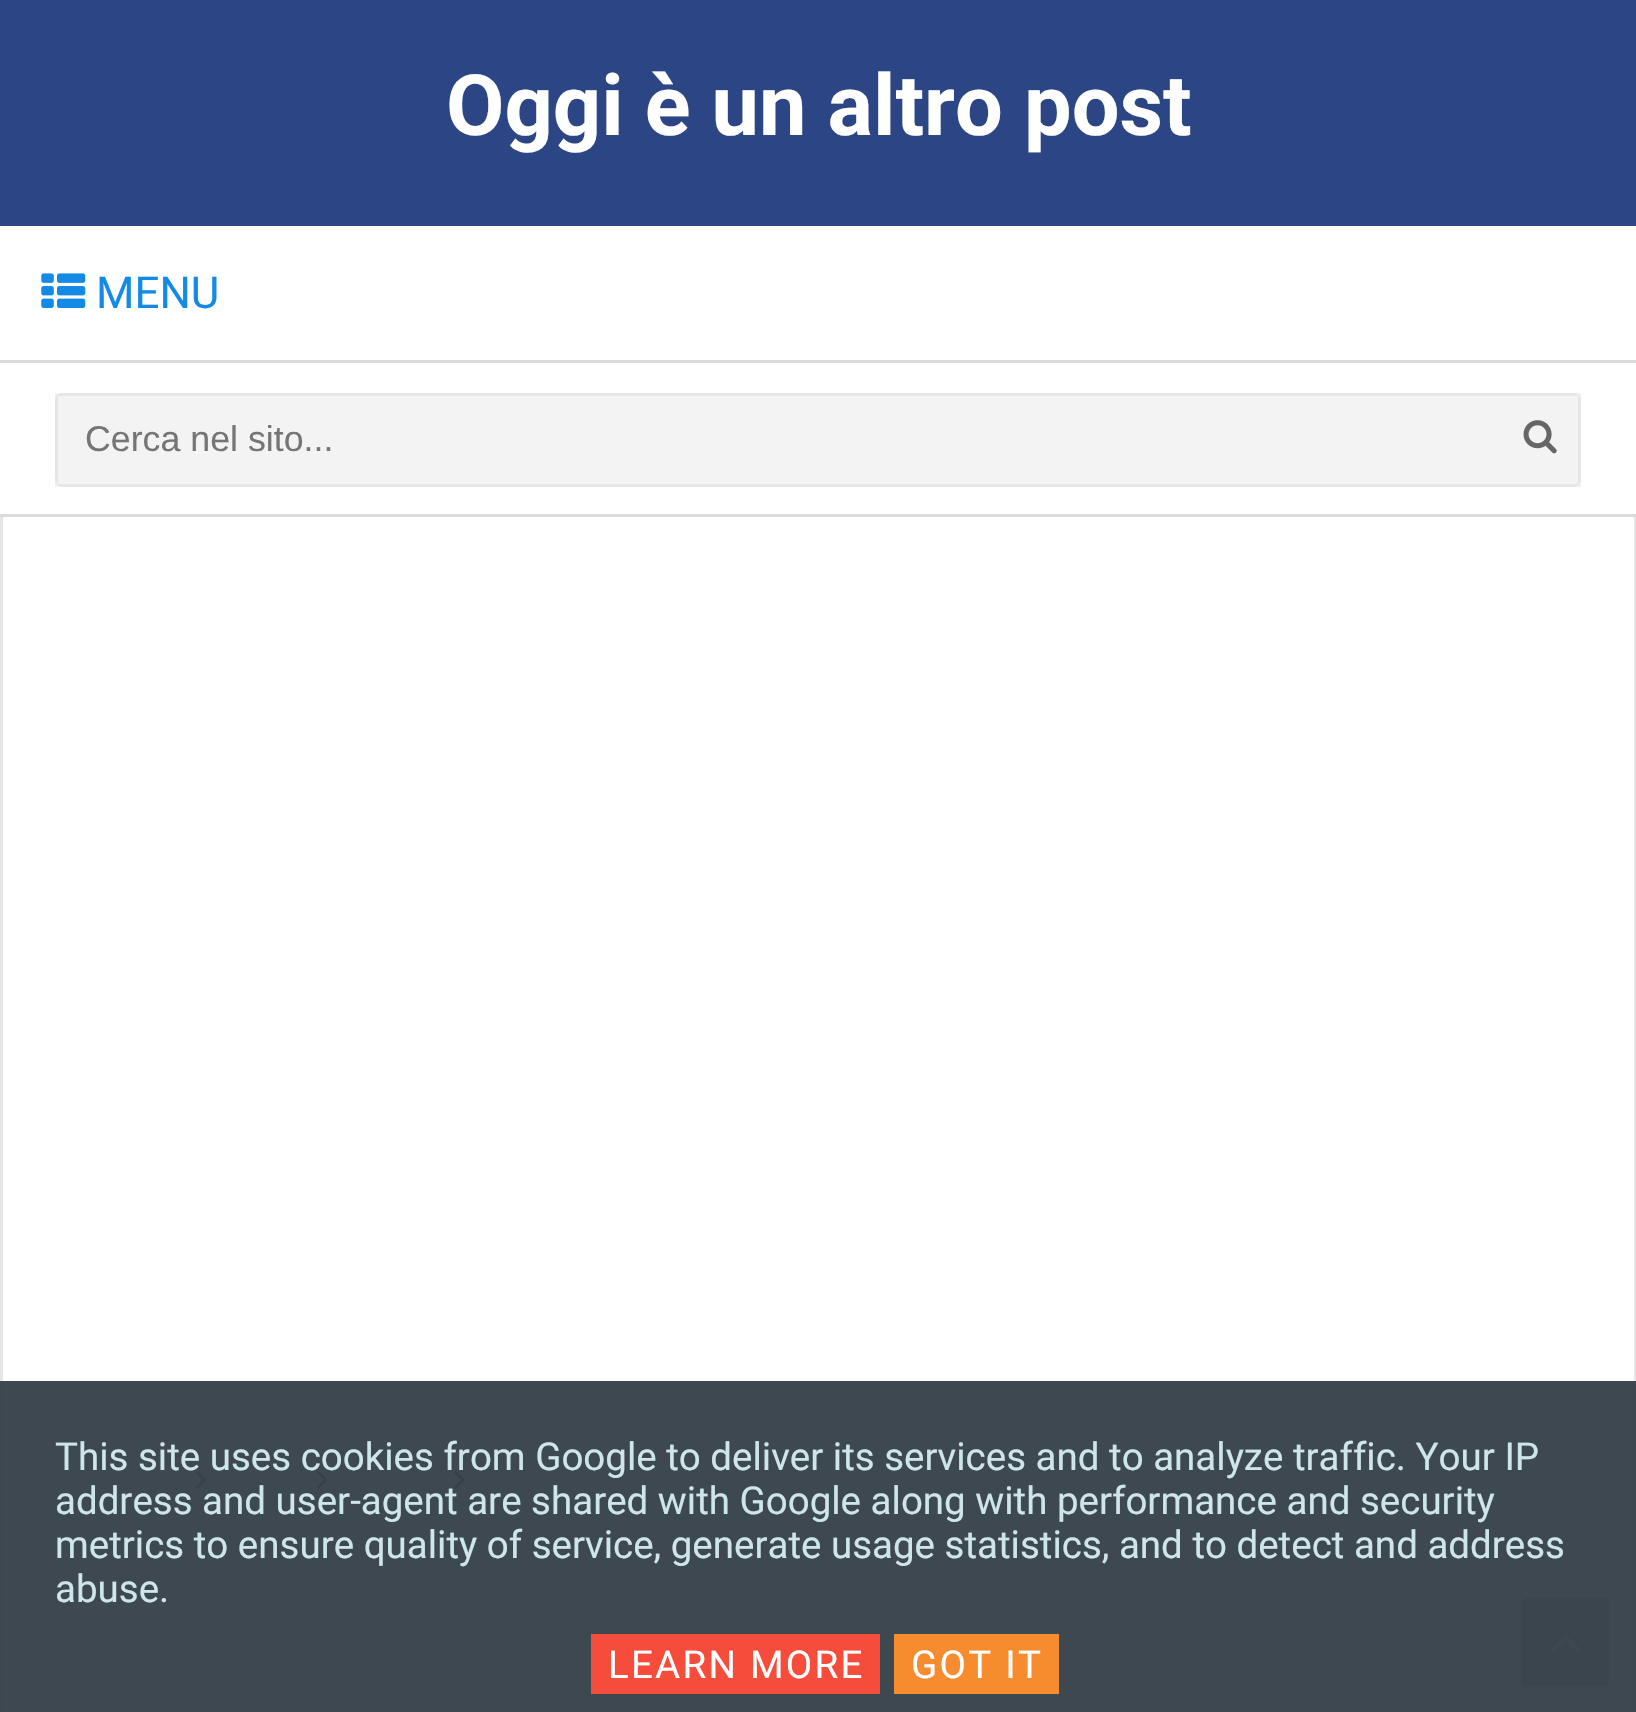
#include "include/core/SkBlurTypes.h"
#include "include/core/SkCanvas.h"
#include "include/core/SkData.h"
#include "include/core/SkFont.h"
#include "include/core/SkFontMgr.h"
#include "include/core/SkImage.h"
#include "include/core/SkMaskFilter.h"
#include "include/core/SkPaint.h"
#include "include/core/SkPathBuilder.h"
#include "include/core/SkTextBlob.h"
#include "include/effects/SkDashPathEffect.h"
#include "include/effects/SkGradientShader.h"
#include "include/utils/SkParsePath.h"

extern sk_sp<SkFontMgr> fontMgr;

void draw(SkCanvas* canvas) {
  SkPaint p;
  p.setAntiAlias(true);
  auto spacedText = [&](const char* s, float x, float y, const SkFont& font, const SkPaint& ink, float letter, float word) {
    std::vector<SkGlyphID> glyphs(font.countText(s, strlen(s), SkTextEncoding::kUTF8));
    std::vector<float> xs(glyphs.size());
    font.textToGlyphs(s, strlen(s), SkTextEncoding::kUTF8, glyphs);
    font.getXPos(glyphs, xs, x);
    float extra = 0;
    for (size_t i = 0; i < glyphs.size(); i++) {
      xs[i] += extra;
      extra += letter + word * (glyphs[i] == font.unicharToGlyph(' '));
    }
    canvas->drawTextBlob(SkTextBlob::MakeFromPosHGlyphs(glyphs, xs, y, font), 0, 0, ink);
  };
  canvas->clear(SK_ColorWHITE);
  p.setColor(SkColorSetRGB(62, 72, 80));
  canvas->drawRect(SkRect::MakeLTRB(3, 1381, 1634, 1712), p);
  p.setColor(SkColorSetRGB(44, 69, 132));
  canvas->drawRect(SkRect::MakeLTRB(0, 0, 1636, 226), p);
  p.setColor(SkColorSetRGB(219, 219, 219));
  canvas->drawRect(SkRect::MakeLTRB(0, 360, 1636, 363), p);
  canvas->drawImageRect(SkImages::DeferredFromEncodedData(SkData::MakeFromFileName("images/1.png")), SkRect::MakeLTRB(41, 273, 86, 308), SkSamplingOptions());
  canvas->drawRect(SkRect::MakeLTRB(0, 514, 1636, 517), p);
  p.setColor(SkColorSetRGB(243, 243, 243));
  canvas->drawRoundRect(SkRect::MakeLTRB(55, 393, 1581, 487), 8, 8, p);
  p.setStyle(SkPaint::kStroke_Style);
  p.setStrokeWidth(3);
  p.setColor(SkColorSetARGB(13, 0, 0, 0));
  canvas->drawRect(SkRect::MakeLTRB(56.5f, 394.5f, 1579.5f, 485.5f), p);
  canvas->drawImageRect(SkImages::DeferredFromEncodedData(SkData::MakeFromFileName("images/2.png")), SkRect::MakeLTRB(1523, 420, 1557, 454), SkSamplingOptions());
  p.setStyle(SkPaint::kFill_Style);
  p.setColor(SkColorSetRGB(230, 230, 230));
  canvas->drawRect(SkRect::MakeLTRB(1634, 517, 1636, 1381), p);
  p.setColor(SkColorSetRGB(61, 71, 80));
  canvas->drawRect(SkRect::MakeLTRB(1634, 1381, 1636, 1712), p);
  p.setColor(SkColorSetRGB(230, 230, 230));
  canvas->drawRect(SkRect::MakeLTRB(0, 517, 3, 1381), p);
  p.setColor(SkColorSetRGB(61, 71, 80));
  canvas->drawRect(SkRect::MakeLTRB(0, 1381, 3, 1712), p);
  canvas->drawImageRect(SkImages::DeferredFromEncodedData(SkData::MakeFromFileName("images/3.png")), SkRect::MakeLTRB(195, 1470, 207, 1489), SkSamplingOptions());
  canvas->drawImageRect(SkImages::DeferredFromEncodedData(SkData::MakeFromFileName("images/3.png")), SkRect::MakeLTRB(316, 1470, 328, 1489), SkSamplingOptions());
  canvas->drawImageRect(SkImages::DeferredFromEncodedData(SkData::MakeFromFileName("images/4.png")), SkRect::MakeLTRB(454, 1470, 465, 1489), SkSamplingOptions());
  p.setColor(SkColorSetRGB(246, 76, 59));
  canvas->drawRect(SkRect::MakeLTRB(591, 1634, 880, 1694), p);
  p.setColor(SkColorSetRGB(246, 140, 46));
  canvas->drawRect(SkRect::MakeLTRB(894, 1634, 1059, 1694), p);
  p.setColor(SkColorSetRGB(59, 69, 78));
  canvas->drawRoundRect(SkRect::MakeLTRB(1521, 1598, 1609, 1686), 6, 6, p);
  canvas->drawImageRect(SkImages::DeferredFromEncodedData(SkData::MakeFromFileName("images/5.png")), SkRect::MakeLTRB(1550, 1634, 1582, 1653), SkSamplingOptions());
  SkFont font1(fontMgr->matchFamilyStyle("Roboto", SkFontStyle::Bold()), 84.75f);
  font1.setSubpixel(true);
  p.setColor(SK_ColorWHITE);
  canvas->drawString("Oggi è un altro post", 446, 135, font1, p);
  SkFont font2(fontMgr->matchFamilyStyle("Roboto", SkFontStyle::Normal()), 44);
  font2.setSubpixel(true);
  p.setColor(SkColorSetRGB(19, 139, 230));
  canvas->drawString("MENU", 96, 308, font2, p);
  SkFont font3(fontMgr->matchFamilyStyle("Liberation Sans", SkFontStyle::Normal()), 35.75f);
  font3.setSubpixel(true);
  p.setColor(SkColorSetRGB(117, 117, 117));
  canvas->drawString("Cerca nel sito...", 85, 451, font3, p);
  SkFont font4(fontMgr->matchFamilyStyle("Roboto", SkFontStyle::Normal()), 38.5f);
  font4.setSubpixel(true);
  p.setColor(SkColorSetRGB(206, 230, 234));
  canvas->drawString("This site uses cookies from Google to deliver its services and to analyze traffic. Your IP", 55, 1470, font4, p);
  canvas->drawString("address and user-agent are shared with Google along with performance and security", 55, 1514, font4, p);
  canvas->drawString("metrics to ensure quality of service, generate usage statistics, and to detect and address", 55, 1558, font4, p);
  canvas->drawString("abuse.", 55, 1602, font4, p);
  p.setColor(SK_ColorWHITE);
  spacedText("LEARN MORE", 608, 1678, font4, p, 2.25f, 0);
  spacedText("GOT IT", 911, 1678, font4, p, 2.25f, 0);
}
